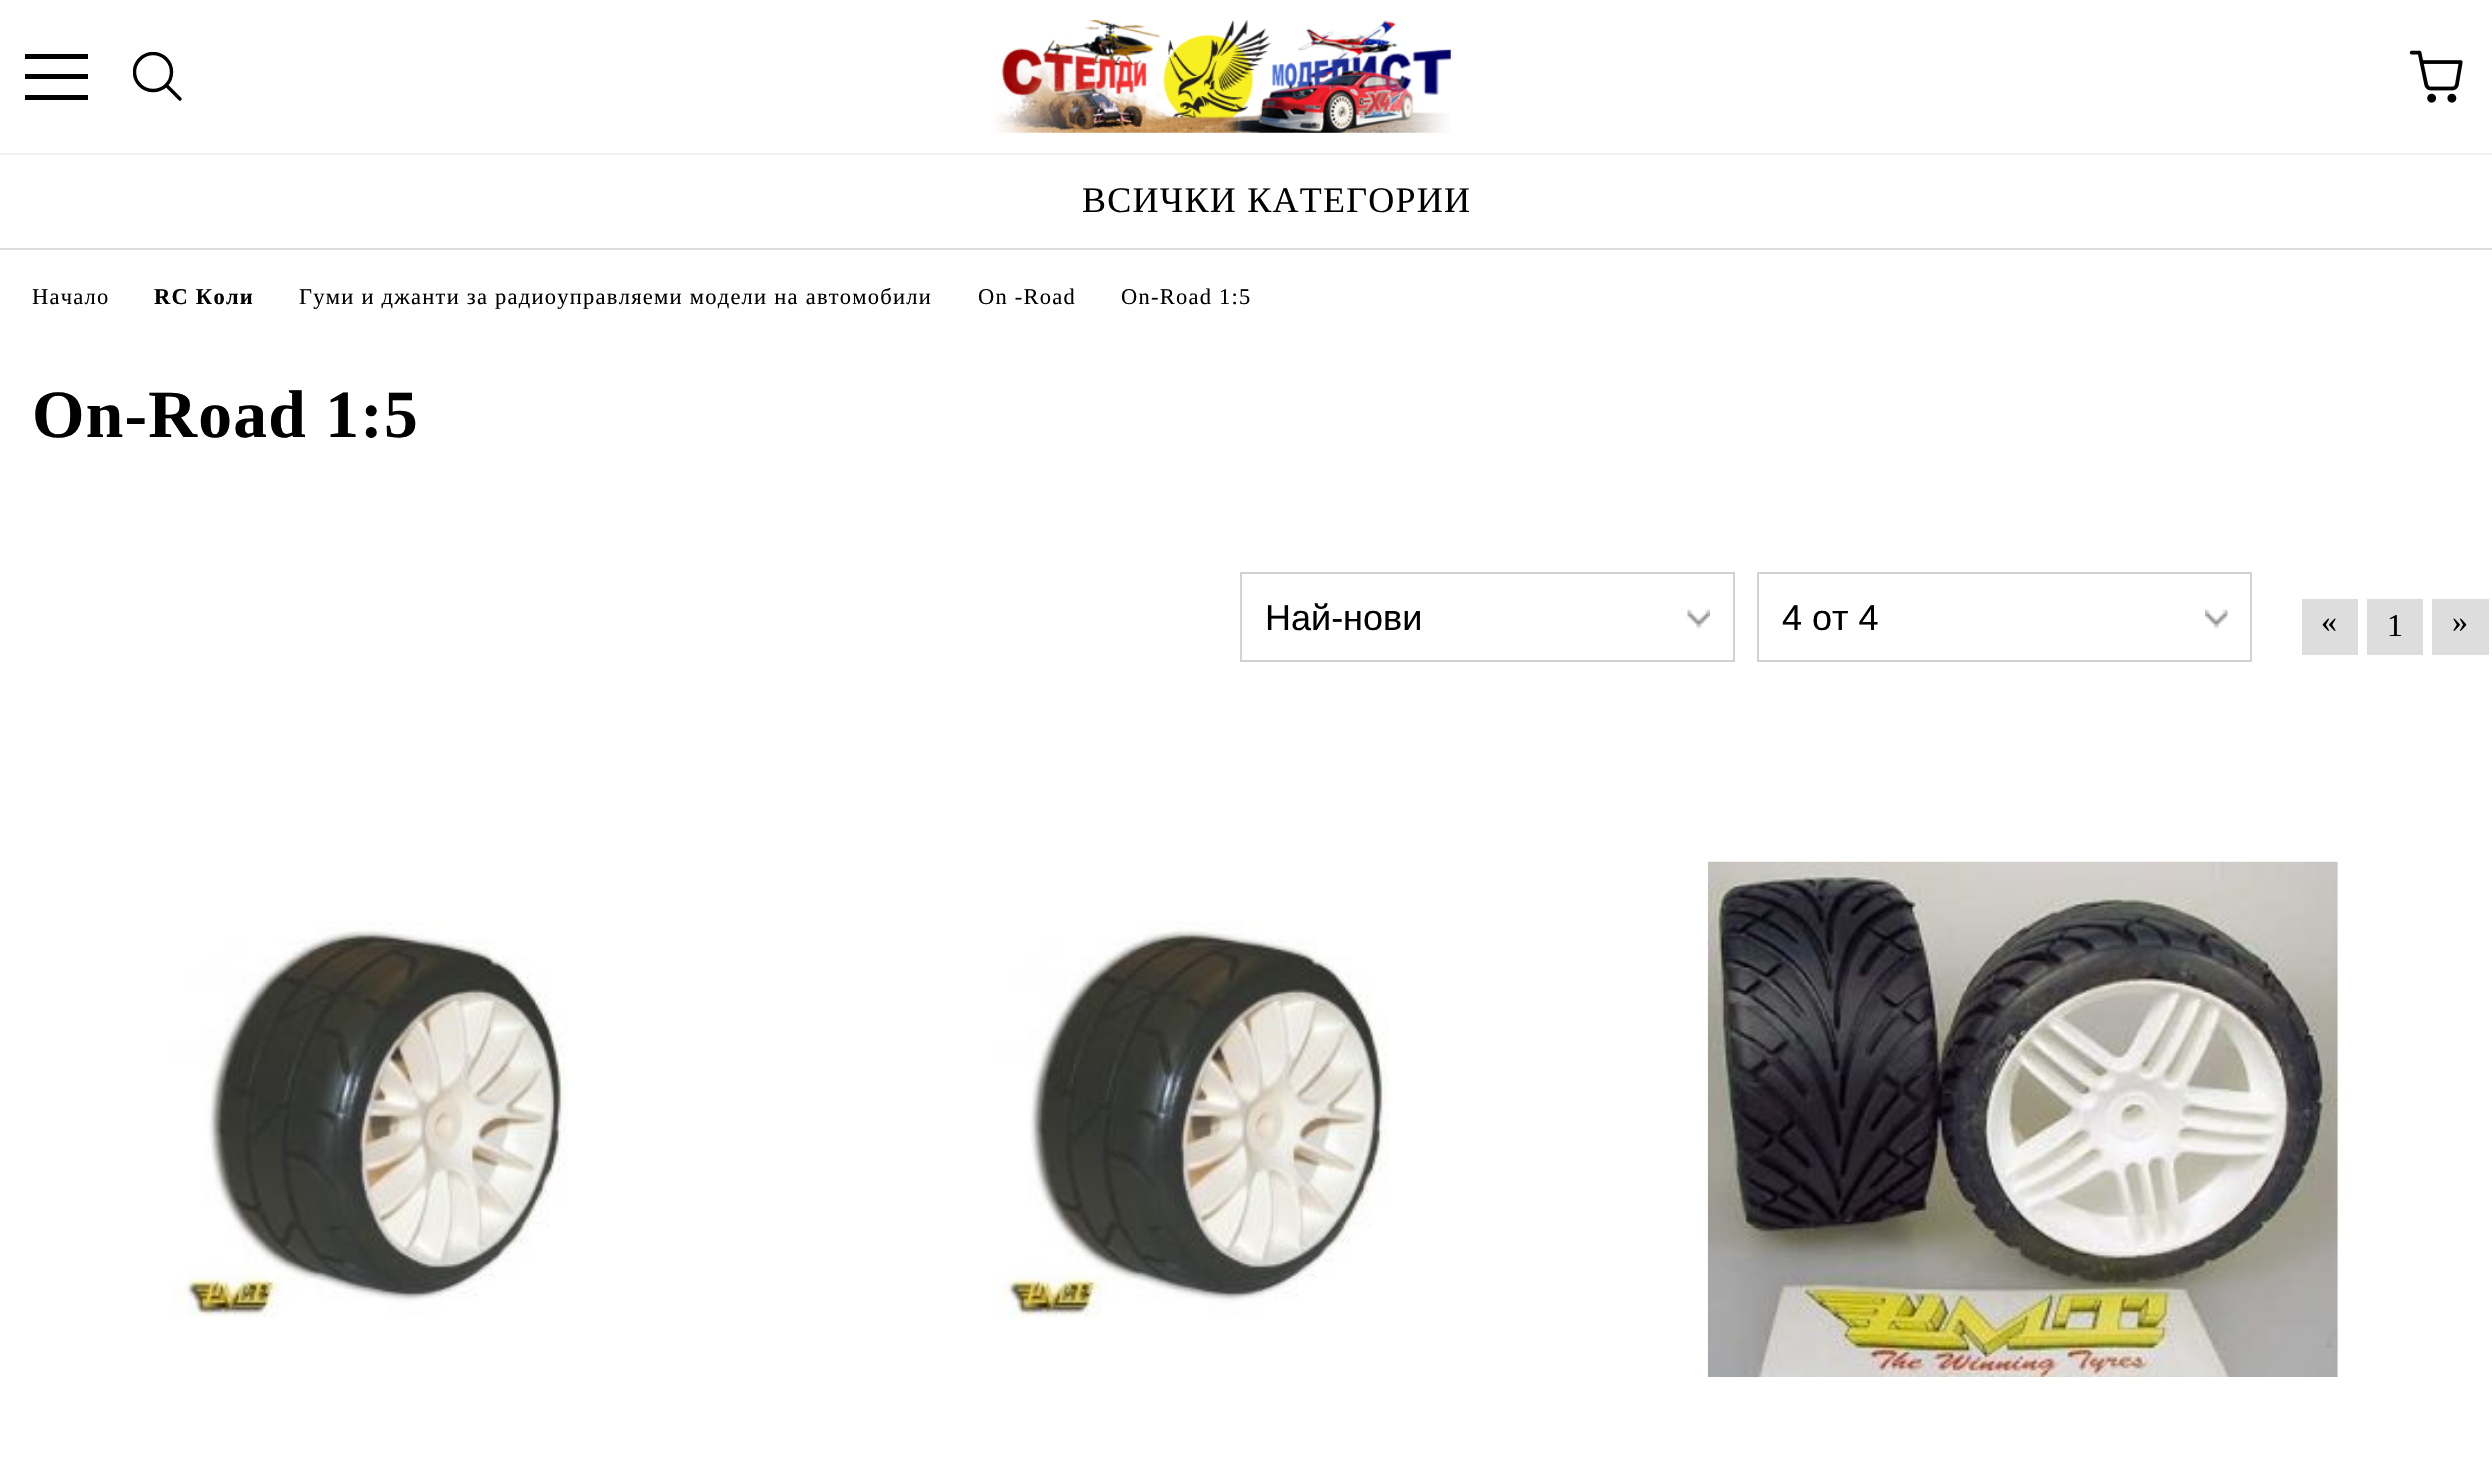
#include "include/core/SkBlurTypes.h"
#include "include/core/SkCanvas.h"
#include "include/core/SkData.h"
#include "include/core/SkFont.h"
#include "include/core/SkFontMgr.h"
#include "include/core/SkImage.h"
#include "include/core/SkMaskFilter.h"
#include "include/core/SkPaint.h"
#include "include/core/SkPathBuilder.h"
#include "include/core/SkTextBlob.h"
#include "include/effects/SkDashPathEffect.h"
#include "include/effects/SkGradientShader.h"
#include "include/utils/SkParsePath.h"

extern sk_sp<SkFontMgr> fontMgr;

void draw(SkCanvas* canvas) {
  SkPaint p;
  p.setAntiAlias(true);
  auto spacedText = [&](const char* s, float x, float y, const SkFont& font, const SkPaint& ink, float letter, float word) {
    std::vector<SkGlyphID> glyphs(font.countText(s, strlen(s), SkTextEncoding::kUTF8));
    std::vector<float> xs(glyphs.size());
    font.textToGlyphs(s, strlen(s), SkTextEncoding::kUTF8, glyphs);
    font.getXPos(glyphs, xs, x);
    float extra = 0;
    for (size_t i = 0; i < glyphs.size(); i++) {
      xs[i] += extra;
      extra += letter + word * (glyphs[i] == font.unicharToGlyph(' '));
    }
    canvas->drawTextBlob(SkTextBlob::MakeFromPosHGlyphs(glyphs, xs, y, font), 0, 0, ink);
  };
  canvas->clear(SK_ColorWHITE);
  p.setColor(SkColorSetRGB(241, 241, 241));
  canvas->drawRect(SkRect::MakeLTRB(0, 153, 2492, 155), p);
  p.setColor(SK_ColorBLACK);
  canvas->drawRect(SkRect::MakeLTRB(25, 54, 88, 59), p);
  canvas->drawRect(SkRect::MakeLTRB(25, 74, 88, 79), p);
  canvas->drawRect(SkRect::MakeLTRB(25, 95, 88, 100), p);
  canvas->save();
  canvas->clipRect(SkRect::MakeLTRB(133, 52, 182, 101));
  p.setStyle(SkPaint::kStroke_Style);
  p.setStrokeWidth(3.4f);
  canvas->drawPath(SkPathBuilder().moveTo(153, 53.5f).cubicTo(143, 53.5f, 134.5f, 62, 134.5f, 72).cubicTo(134.5f, 82.5f, 143, 90.5f, 153, 90.5f).cubicTo(163.5f, 90.5f, 171.5f, 82.5f, 171.5f, 72).cubicTo(171.5f, 62, 163.5f, 53.5f, 153, 53.5f).close().detach(), p);
  canvas->restore();
  p.setStrokeCap(SkPaint::kRound_Cap);
  canvas->drawPath(SkPathBuilder().moveTo(167, 86).lineTo(180, 99).detach(), p);
  canvas->drawImageRect(SkImages::DeferredFromEncodedData(SkData::MakeFromFileName("images/1.png")), SkRect::MakeLTRB(994, 20, 1451, 133), SkSamplingOptions());
  canvas->drawImageRect(SkImages::DeferredFromEncodedData(SkData::MakeFromFileName("images/2.png")), SkRect::MakeLTRB(2409, 50, 2463, 103), SkSamplingOptions());
  p.setStyle(SkPaint::kFill_Style);
  p.setColor(SkColorSetRGB(221, 221, 221));
  canvas->drawRect(SkRect::MakeLTRB(0, 248, 2492, 250), p);
  canvas->drawImageRect(SkImages::DeferredFromEncodedData(SkData::MakeFromFileName("images/3.png")), SkRect::MakeLTRB(1687, 609, 1710, 629), SkSamplingOptions());
  p.setStyle(SkPaint::kStroke_Style);
  p.setStrokeWidth(2);
  p.setStrokeCap(SkPaint::kButt_Cap);
  p.setColor(SkColorSetRGB(210, 210, 210));
  canvas->drawRect(SkRect::MakeLTRB(1241, 573, 1734, 661), p);
  canvas->drawImageRect(SkImages::DeferredFromEncodedData(SkData::MakeFromFileName("images/4.png")), SkRect::MakeLTRB(2205, 609, 2228, 629), SkSamplingOptions());
  canvas->drawRect(SkRect::MakeLTRB(1758, 573, 2251, 661), p);
  p.setStyle(SkPaint::kFill_Style);
  p.setColor(SkColorSetRGB(221, 221, 221));
  canvas->drawRect(SkRect::MakeLTRB(2302, 599, 2358, 655), p);
  canvas->drawRect(SkRect::MakeLTRB(2367, 599, 2423, 655), p);
  canvas->drawRect(SkRect::MakeLTRB(2432, 599, 2489, 655), p);
  canvas->drawImageRect(SkImages::DeferredFromEncodedData(SkData::MakeFromFileName("images/5.png")), SkRect::MakeLTRB(171, 921, 568, 1318), SkSamplingOptions());
  canvas->drawImageRect(SkImages::DeferredFromEncodedData(SkData::MakeFromFileName("images/6.png")), SkRect::MakeLTRB(992, 921, 1389, 1318), SkSamplingOptions());
  canvas->drawImageRect(SkImages::DeferredFromEncodedData(SkData::MakeFromFileName("images/7.png")), SkRect::MakeLTRB(1707, 861, 2338, 1377), SkSamplingOptions());
  SkFont font1(fontMgr->matchFamilyStyle("Liberation Serif", SkFontStyle::Normal()), 36);
  font1.setSubpixel(true);
  p.setColor(SK_ColorBLACK);
  spacedText("ВСИЧКИ КАТЕГОРИИ", 1082, 212, font1, p, 1.25f, 0);
  SkFont font2(fontMgr->matchFamilyStyle("Liberation Serif", SkFontStyle::Normal()), 22.5f);
  font2.setSubpixel(true);
  spacedText("Начало", 32, 304, font2, p, 1.25f, 0);
  SkFont font3(fontMgr->matchFamilyStyle("Liberation Serif", SkFontStyle::Bold()), 22.5f);
  font3.setSubpixel(true);
  spacedText("RC Коли", 154, 304, font3, p, 1.25f, 0);
  spacedText("Гуми и джанти за радиоуправляеми модели на автомобили", 299, 304, font2, p, 1.25f, 0);
  spacedText("On -Road", 978, 304, font2, p, 1.25f, 0);
  spacedText("On-Road 1:5", 1121, 304, font2, p, 1.25f, 0);
  SkFont font4(fontMgr->matchFamilyStyle("Liberation Serif", SkFontStyle::Bold()), 67.5f);
  font4.setSubpixel(true);
  spacedText("On-Road 1:5", 32, 437, font4, p, 1.25f, 0);
  SkFont font5(fontMgr->matchFamilyStyle("Liberation Sans", SkFontStyle::Normal()), 36);
  font5.setSubpixel(true);
  canvas->drawString("Най-нови", 1265, 630, font5, p);
  canvas->drawString("4 от 4", 1782, 630, font5, p);
  SkFont font6(fontMgr->matchFamilyStyle("Liberation Serif", SkFontStyle::Normal()), 32);
  font6.setSubpixel(true);
  spacedText("«", 2321, 632, font6, p, 1.25f, 0);
  spacedText("1", 2387, 636, font6, p, 1.25f, 0);
  spacedText("»", 2452, 632, font6, p, 1.25f, 0);
}
